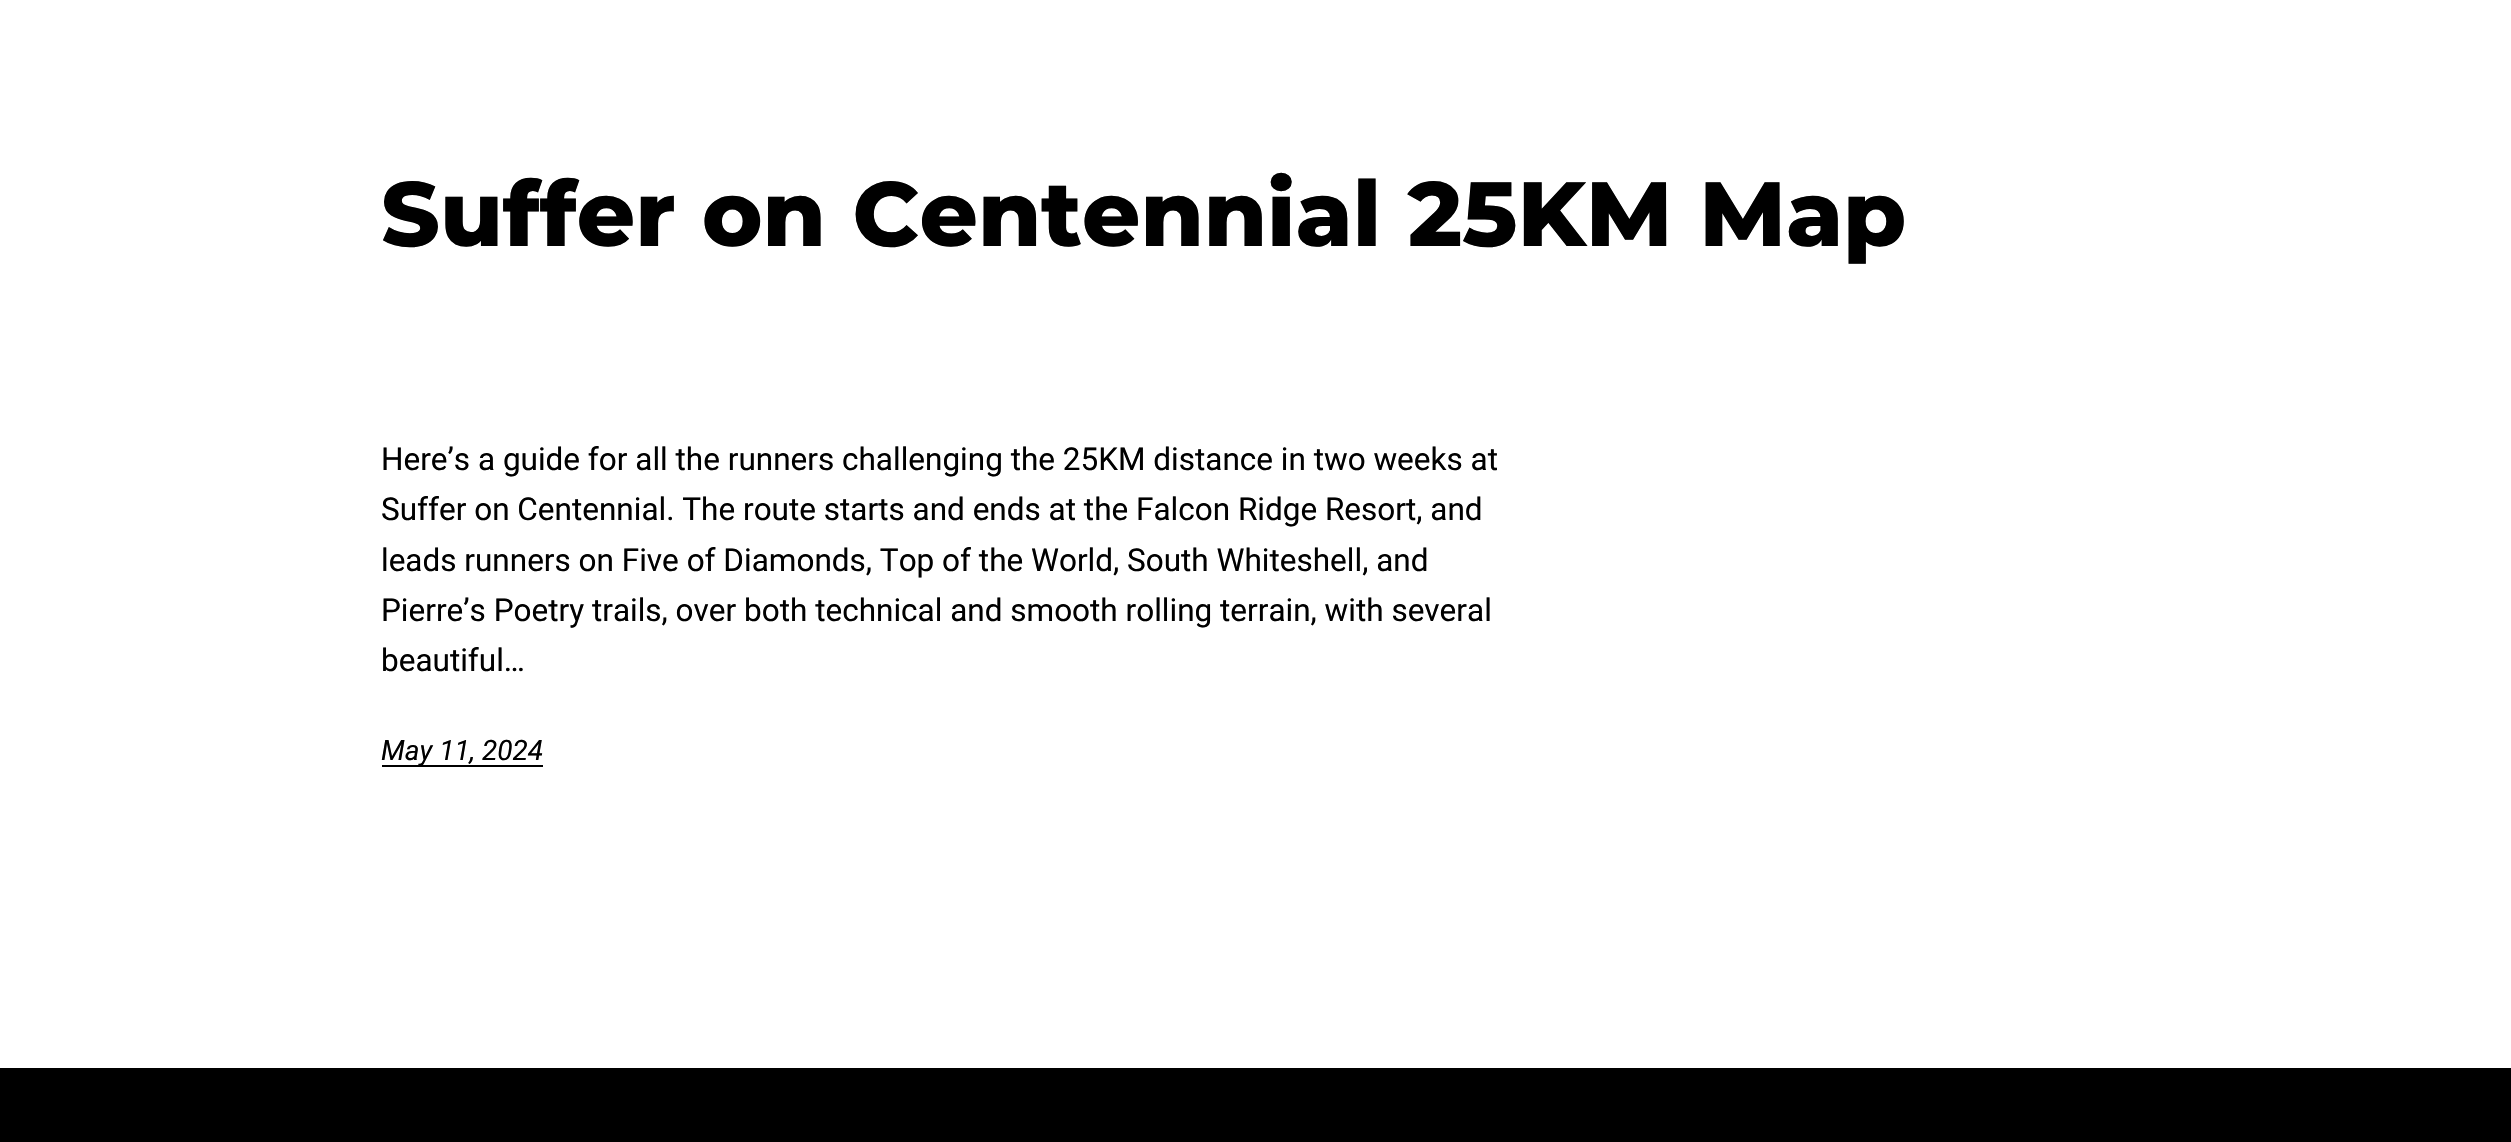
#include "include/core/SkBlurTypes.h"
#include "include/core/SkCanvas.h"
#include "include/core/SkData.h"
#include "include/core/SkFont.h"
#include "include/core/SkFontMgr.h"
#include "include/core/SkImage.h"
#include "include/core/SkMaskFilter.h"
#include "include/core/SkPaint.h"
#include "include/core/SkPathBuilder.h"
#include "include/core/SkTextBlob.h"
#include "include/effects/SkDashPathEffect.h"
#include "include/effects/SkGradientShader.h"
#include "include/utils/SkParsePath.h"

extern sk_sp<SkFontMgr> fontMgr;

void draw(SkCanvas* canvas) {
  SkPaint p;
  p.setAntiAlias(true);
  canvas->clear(SK_ColorWHITE);
  p.setColor(SK_ColorBLACK);
  canvas->drawRect(SkRect::MakeLTRB(382, 765, 543, 767), p);
  canvas->drawRect(SkRect::MakeLTRB(0, 1068, 2511, 1142), p);
  SkFont font1(fontMgr->matchFamilyStyle("Montserrat", SkFontStyle(800, SkFontStyle::kNormal_Width, SkFontStyle::kUpright_Slant)), 91);
  font1.setSubpixel(true);
  canvas->drawString("Suffer on Centennial 25KM Map", 381, 246, font1, p);
  SkFont font2(fontMgr->matchFamilyStyle("Roboto", SkFontStyle::Normal()), 31.5f);
  font2.setSubpixel(true);
  canvas->drawString("Here’s a guide for all the runners challenging the 25KM distance in two weeks at", 381, 470, font2, p);
  canvas->drawString("Suffer on Centennial. The route starts and ends at the Falcon Ridge Resort, and", 381, 520, font2, p);
  canvas->drawString("leads runners on Five of Diamonds, Top of the World, South Whiteshell, and", 381, 571, font2, p);
  canvas->drawString("Pierre’s Poetry trails, over both technical and smooth rolling terrain, with several", 381, 621, font2, p);
  canvas->drawString("beautiful…", 381, 671, font2, p);
  SkFont font3(fontMgr->matchFamilyStyle("Roboto", SkFontStyle::Italic()), 28);
  font3.setSubpixel(true);
  canvas->drawString("May 11, 2024", 381, 760, font3, p);
}
